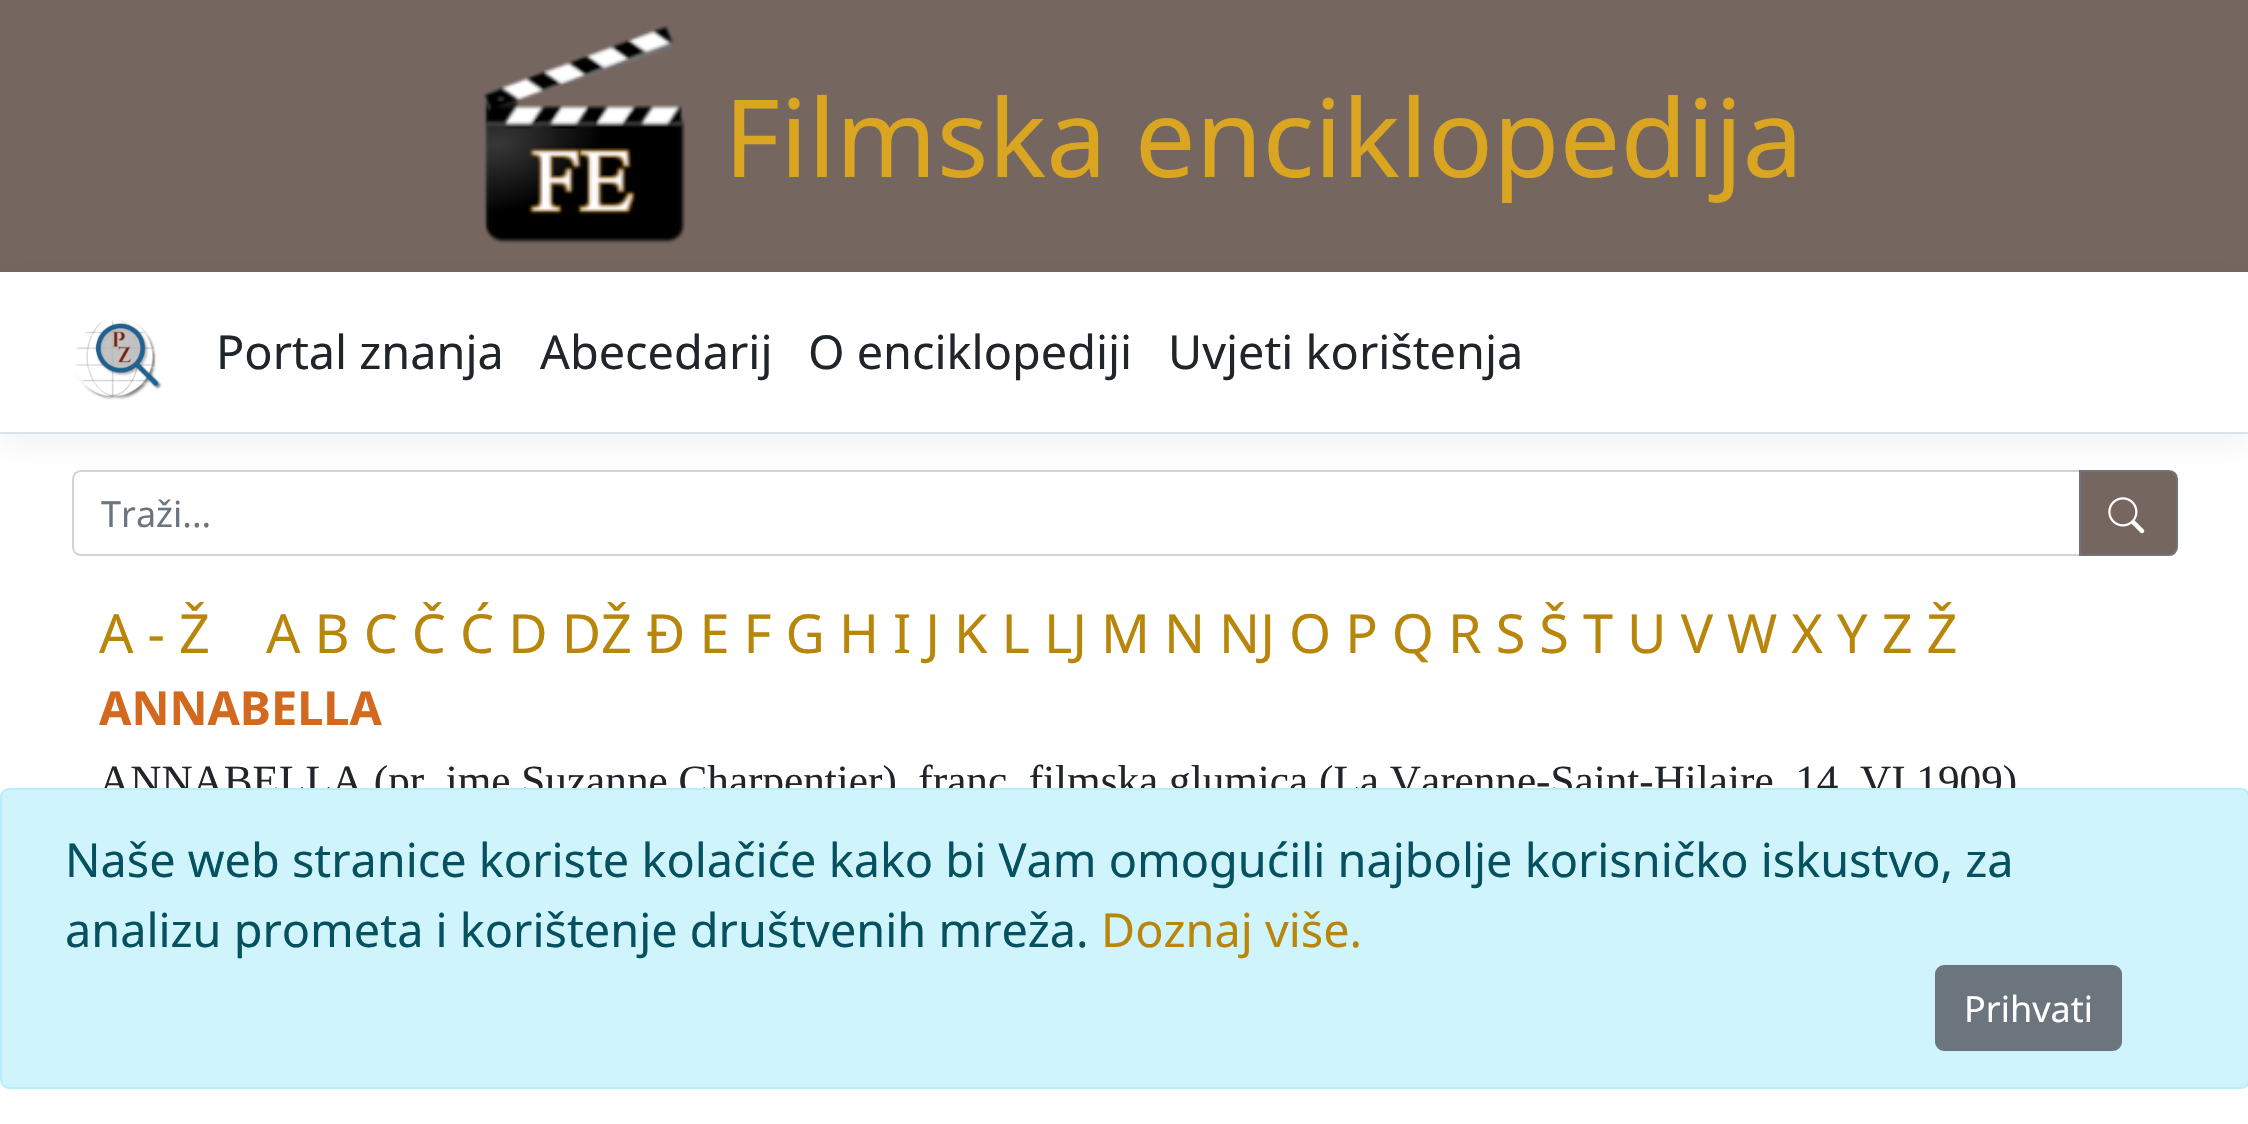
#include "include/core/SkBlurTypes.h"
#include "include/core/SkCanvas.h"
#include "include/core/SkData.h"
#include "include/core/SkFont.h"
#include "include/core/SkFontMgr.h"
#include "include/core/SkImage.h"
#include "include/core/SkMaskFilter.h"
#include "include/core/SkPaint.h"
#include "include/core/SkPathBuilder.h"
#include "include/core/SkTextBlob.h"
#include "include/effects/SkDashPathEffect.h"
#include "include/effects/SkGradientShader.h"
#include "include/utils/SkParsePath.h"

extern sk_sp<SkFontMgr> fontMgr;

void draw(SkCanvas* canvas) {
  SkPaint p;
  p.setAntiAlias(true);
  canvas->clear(SK_ColorWHITE);
  p.setColor(SkColorSetRGB(117, 102, 95));
  canvas->drawRect(SkRect::MakeLTRB(0, 0, 2248, 272), p);
  canvas->drawImageRect(SkImages::DeferredFromEncodedData(SkData::MakeFromFileName("images/1.png")), SkRect::MakeLTRB(483, 25, 686, 244), SkSamplingOptions());
  p.setColor(SkColorSetARGB(13, 0, 0, 0));
  p.setMaskFilter(SkMaskFilter::MakeBlur(kNormal_SkBlurStyle, 13.5f));
  canvas->drawRect(SkRect::MakeLTRB(0, 281, 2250, 443), p);
  p.setMaskFilter(nullptr);
  p.setColor(SK_ColorWHITE);
  canvas->drawRect(SkRect::MakeLTRB(0, 272, 2248, 432), p);
  p.setColor(SkColorSetRGB(222, 226, 230));
  canvas->drawRect(SkRect::MakeLTRB(0, 432, 2248, 434), p);
  canvas->drawImageRect(SkImages::DeferredFromEncodedData(SkData::MakeFromFileName("images/2.png")), SkRect::MakeLTRB(75, 319, 162, 400), SkSamplingOptions());
  p.setStyle(SkPaint::kStroke_Style);
  p.setStrokeWidth(2);
  p.setColor(SkColorSetRGB(206, 212, 218));
  canvas->drawPath(SkPathBuilder().moveTo(81, 471).lineTo(2080, 471).lineTo(2080, 555).lineTo(81, 555).cubicTo(76.5f, 555, 73, 551.5f, 73, 547).lineTo(73, 479).cubicTo(73, 474.5f, 76.5f, 471, 81, 471).close().detach(), p);
  p.setStyle(SkPaint::kFill_Style);
  p.setColor(SkColorSetRGB(117, 102, 95));
  canvas->drawPath(SkPathBuilder().moveTo(2080, 471).lineTo(2169, 471).cubicTo(2173.5f, 471, 2177, 474.5f, 2177, 479).lineTo(2177, 547).cubicTo(2177, 551.5f, 2173.5f, 555, 2169, 555).lineTo(2080, 555).close().detach(), p);
  p.setStyle(SkPaint::kStroke_Style);
  p.setColor(SkColorSetRGB(108, 117, 125));
  canvas->drawPath(SkPathBuilder().moveTo(2080, 471).lineTo(2169, 471).cubicTo(2173.5f, 471, 2177, 474.5f, 2177, 479).lineTo(2177, 547).cubicTo(2177, 551.5f, 2173.5f, 555, 2169, 555).lineTo(2080, 555).close().detach(), p);
  canvas->drawImageRect(SkImages::DeferredFromEncodedData(SkData::MakeFromFileName("images/3.png")), SkRect::MakeLTRB(2108, 497, 2145, 534), SkSamplingOptions());
  SkFont font1(fontMgr->matchFamilyStyle("Noto Sans", SkFontStyle::Normal()), 108);
  font1.setSubpixel(true);
  p.setStyle(SkPaint::kFill_Style);
  p.setColor(SkColorSetRGB(218, 165, 32));
  canvas->drawString("Filmska enciklopedija", 724, 177, font1, p);
  SkFont font2(fontMgr->matchFamilyStyle("Noto Sans", SkFontStyle::Normal()), 46.8f);
  font2.setSubpixel(true);
  p.setColor(SkColorSetRGB(33, 37, 41));
  canvas->drawString("Portal znanja", 216, 369, font2, p);
  canvas->drawString("Abecedarij", 540, 369, font2, p);
  canvas->drawString("O enciklopediji", 808, 369, font2, p);
  canvas->drawString("Uvjeti korištenja", 1168, 369, font2, p);
  SkFont font3(fontMgr->matchFamilyStyle("Noto Sans", SkFontStyle::Normal()), 36);
  font3.setSubpixel(true);
  p.setColor(SkColorSetRGB(108, 117, 125));
  canvas->drawString("Traži...", 101, 527, font3, p);
  SkFont font4(fontMgr->matchFamilyStyle("Noto Sans", SkFontStyle::Normal()), 54);
  font4.setSubpixel(true);
  p.setColor(SkColorSetRGB(184, 134, 11));
  canvas->drawString("A - Ž", 99, 653, font4, p);
  canvas->drawString("A B C Č Ć D DŽ Đ E F G H I J K L LJ M N NJ O P Q R S Š T U V W X Y Z Ž", 266, 653, font4, p);
  SkFont font5(fontMgr->matchFamilyStyle("Noto Sans", SkFontStyle::Bold()), 46.8f);
  font5.setSubpixel(true);
  p.setColor(SkColorSetRGB(210, 105, 30));
  canvas->drawString("ANNABELLA", 99, 725, font5, p);
  SkFont font6(fontMgr->matchFamilyStyle("Liberation Serif", SkFontStyle::Normal()), 43.2f);
  font6.setSubpixel(true);
  p.setColor(SkColorSetRGB(33, 37, 41));
  canvas->drawString("ANNABELLA (pr. ime Suzanne Charpentier), franc. filmska glumica (La Varenne-Saint-Hilaire, 14. VI 1909)", 99, 795, font6, p);
  p.setColor(SkColorSetRGB(207, 244, 252));
  canvas->drawRoundRect(SkRect::MakeLTRB(1, 789, 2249, 1088), 8, 8, p);
  p.setStyle(SkPaint::kStroke_Style);
  p.setColor(SkColorSetRGB(182, 239, 251));
  canvas->drawRoundRect(SkRect::MakeLTRB(1, 789, 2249, 1088), 8, 8, p);
  p.setStyle(SkPaint::kFill_Style);
  p.setColor(SkColorSetRGB(5, 81, 96));
  canvas->drawString("Naše web stranice koriste kolačiće kako bi Vam omogućili najbolje korisničko iskustvo, za", 65, 877, font2, p);
  canvas->drawString("analizu prometa i korištenje društvenih mreža.", 65, 947, font2, p);
  p.setColor(SkColorSetRGB(184, 134, 11));
  canvas->drawString("Doznaj više.", 1101, 947, font2, p);
  p.setColor(SkColorSetRGB(108, 117, 125));
  canvas->drawRoundRect(SkRect::MakeLTRB(1936, 966, 2121, 1050), 8, 8, p);
  p.setStyle(SkPaint::kStroke_Style);
  canvas->drawRoundRect(SkRect::MakeLTRB(1936, 966, 2121, 1050), 8, 8, p);
  p.setStyle(SkPaint::kFill_Style);
  p.setColor(SK_ColorWHITE);
  canvas->drawString("Prihvati", 1964, 1022, font3, p);
}
